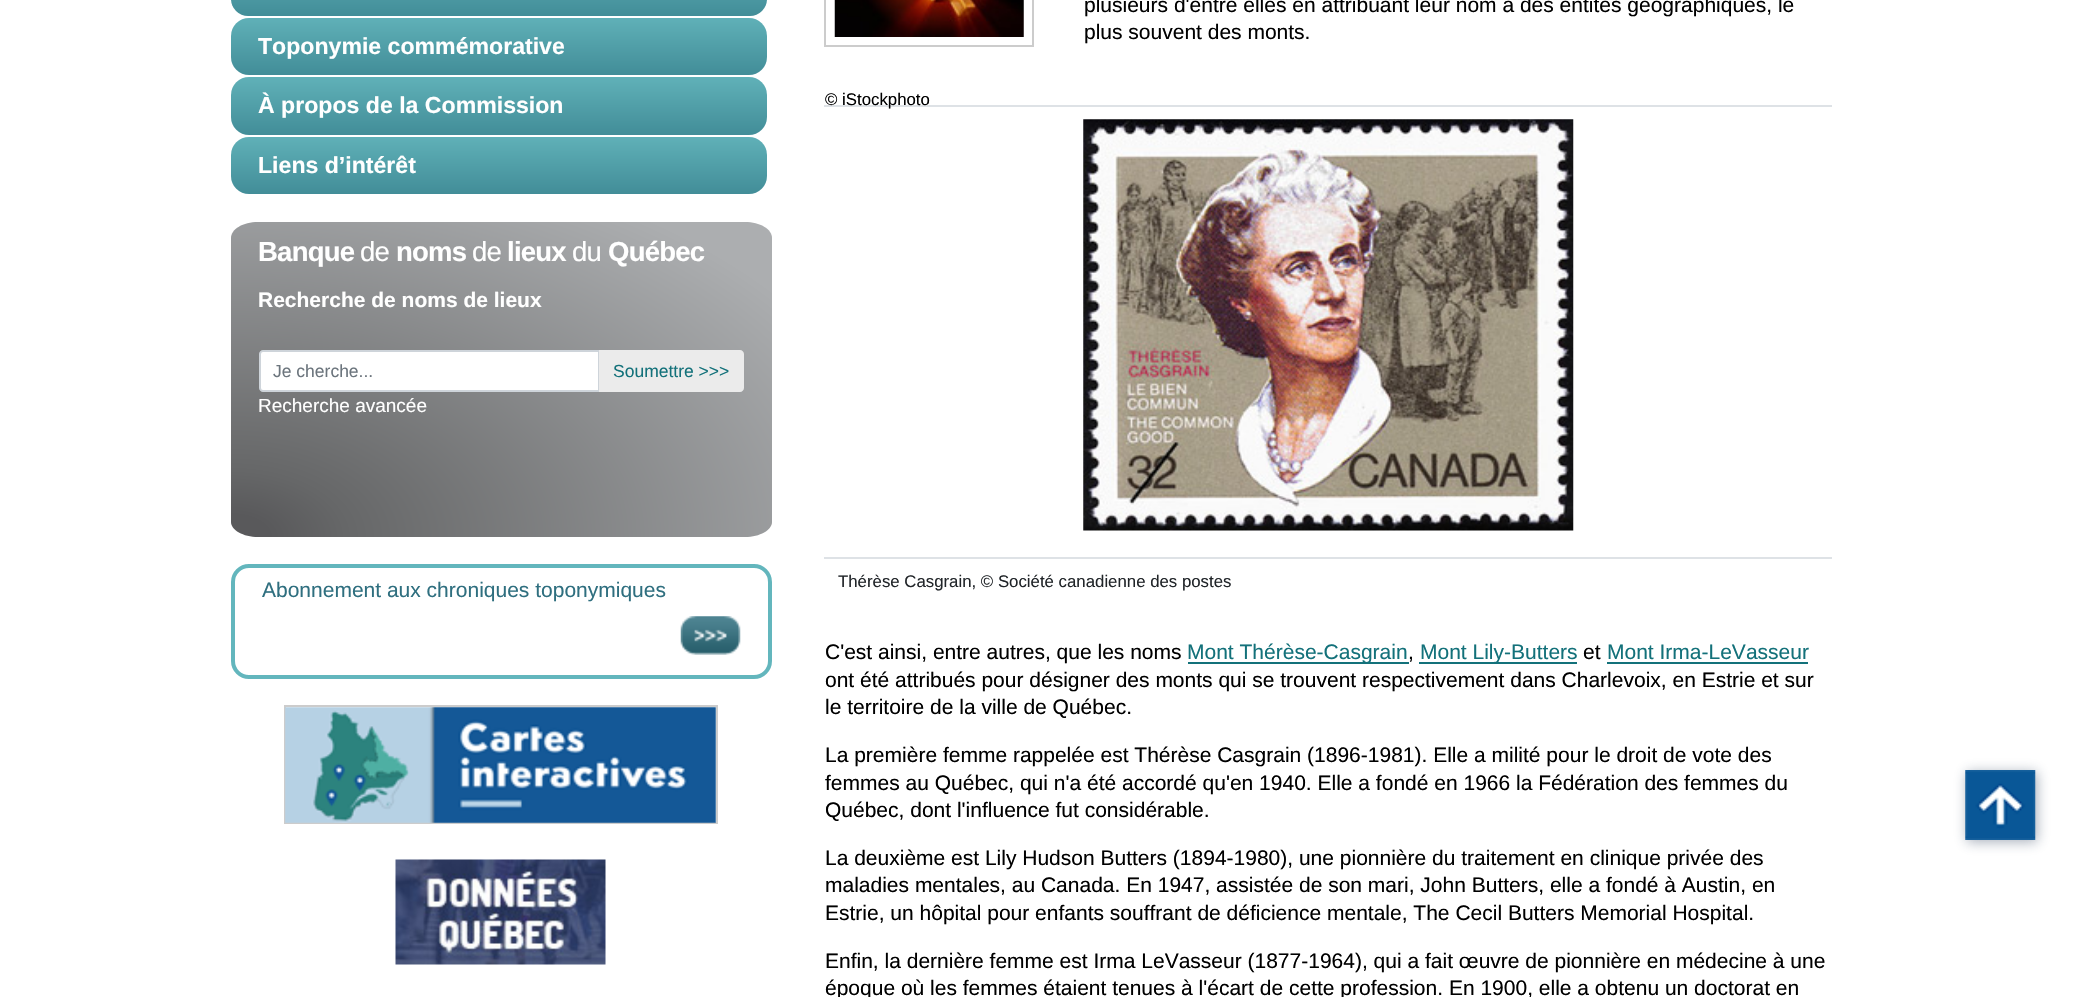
#include "include/core/SkBlurTypes.h"
#include "include/core/SkCanvas.h"
#include "include/core/SkData.h"
#include "include/core/SkFont.h"
#include "include/core/SkFontMgr.h"
#include "include/core/SkImage.h"
#include "include/core/SkMaskFilter.h"
#include "include/core/SkPaint.h"
#include "include/core/SkPathBuilder.h"
#include "include/core/SkTextBlob.h"
#include "include/effects/SkDashPathEffect.h"
#include "include/effects/SkGradientShader.h"
#include "include/utils/SkParsePath.h"

extern sk_sp<SkFontMgr> fontMgr;

void draw(SkCanvas* canvas) {
  SkPaint p;
  p.setAntiAlias(true);
  auto spacedText = [&](const char* s, float x, float y, const SkFont& font, const SkPaint& ink, float letter, float word) {
    std::vector<SkGlyphID> glyphs(font.countText(s, strlen(s), SkTextEncoding::kUTF8));
    std::vector<float> xs(glyphs.size());
    font.textToGlyphs(s, strlen(s), SkTextEncoding::kUTF8, glyphs);
    font.getXPos(glyphs, xs, x);
    float extra = 0;
    for (size_t i = 0; i < glyphs.size(); i++) {
      xs[i] += extra;
      extra += letter + word * (glyphs[i] == font.unicharToGlyph(' '));
    }
    canvas->drawTextBlob(SkTextBlob::MakeFromPosHGlyphs(glyphs, xs, y, font), 0, 0, ink);
  };
  canvas->clear(SK_ColorWHITE);
  {
    const SkColor colors[] = {SkColorSetRGB(96, 177, 184), SkColorSetRGB(66, 141, 152)};
    const float stops[] = {0, 1};
    const SkPoint ends[] = {{499, -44}, {499, 16}};
    p.setShader(SkGradientShader::MakeLinear(ends, colors, stops, 2, SkTileMode::kClamp));
    p.setAlpha(255);
  }
  canvas->drawRoundRect(SkRect::MakeLTRB(231, -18, 767, 16), 18, 18, p);
  {
    const SkColor colors[] = {SkColorSetRGB(96, 177, 184), SkColorSetRGB(66, 141, 152)};
    const float stops[] = {0, 1};
    const SkPoint ends[] = {{499, 17}, {499, 75}};
    p.setShader(SkGradientShader::MakeLinear(ends, colors, stops, 2, SkTileMode::kClamp));
    p.setAlpha(255);
  }
  canvas->drawRoundRect(SkRect::MakeLTRB(231, 18, 767, 75), 18, 18, p);
  {
    const SkColor colors[] = {SkColorSetRGB(96, 177, 184), SkColorSetRGB(66, 141, 152)};
    const float stops[] = {0, 1};
    const SkPoint ends[] = {{499, 77}, {499, 135}};
    p.setShader(SkGradientShader::MakeLinear(ends, colors, stops, 2, SkTileMode::kClamp));
    p.setAlpha(255);
  }
  canvas->drawRoundRect(SkRect::MakeLTRB(231, 77, 767, 135), 18, 18, p);
  {
    const SkColor colors[] = {SkColorSetRGB(96, 177, 184), SkColorSetRGB(66, 141, 152)};
    const float stops[] = {0, 1};
    const SkPoint ends[] = {{499, 136}, {499, 194}};
    p.setShader(SkGradientShader::MakeLinear(ends, colors, stops, 2, SkTileMode::kClamp));
    p.setAlpha(255);
  }
  canvas->drawRoundRect(SkRect::MakeLTRB(231, 137, 767, 194), 18, 18, p);
  {
    const SkColor colors[] = {SkColorSetRGB(89, 89, 91), SkColorSetRGB(102, 103, 104), SkColorSetRGB(172, 174, 176)};
    const float stops[] = {0.05f, 0.15f, 0.9f};
    SkMatrix m = SkMatrix::Translate(231, 537).preScale(765, 445);
    p.setShader(SkGradientShader::MakeRadial({0, 0}, 1, colors, stops, 3, SkTileMode::kClamp, 0, &m));
    p.setAlpha(255);
  }
  canvas->drawPath(SkPathBuilder().moveTo(258, 222).lineTo(745, 222).cubicTo(760, 222, 772, 229, 772, 238).lineTo(772, 522).cubicTo(772, 530, 760, 537, 745, 537).lineTo(258, 537).cubicTo(243, 537, 231, 530, 231, 522).lineTo(231, 238).cubicTo(231, 229, 243, 222, 258, 222).close().detach(), p);
  p.setShader(nullptr);
  p.setColor(SK_ColorWHITE);
  canvas->drawPath(SkPathBuilder().moveTo(263, 351).lineTo(599, 351).lineTo(599, 391).lineTo(263, 391).cubicTo(261.5f, 391, 260, 389.5f, 260, 388).lineTo(260, 354).cubicTo(260, 352.5f, 261.5f, 351, 263, 351).close().detach(), p);
  p.setStyle(SkPaint::kStroke_Style);
  p.setStrokeWidth(2);
  p.setColor(SkColorSetRGB(206, 212, 218));
  canvas->drawPath(SkPathBuilder().moveTo(263, 351).lineTo(599, 351).lineTo(599, 391).lineTo(263, 391).cubicTo(261.5f, 391, 260, 389.5f, 260, 388).lineTo(260, 354).cubicTo(260, 352.5f, 261.5f, 351, 263, 351).close().detach(), p);
  p.setStyle(SkPaint::kFill_Style);
  p.setColor(SkColorSetRGB(235, 235, 235));
  canvas->drawPath(SkPathBuilder().moveTo(599, 350).lineTo(740, 350).cubicTo(742, 350, 744, 352, 744, 354).lineTo(744, 388).cubicTo(744, 390, 742, 392, 740, 392).lineTo(599, 392).close().detach(), p);
  p.setStyle(SkPaint::kStroke_Style);
  p.setStrokeWidth(4);
  p.setColor(SkColorSetRGB(99, 182, 189));
  canvas->drawRoundRect(SkRect::MakeLTRB(233, 566, 770, 677), 16, 16, p);
  canvas->drawImageRect(SkImages::DeferredFromEncodedData(SkData::MakeFromFileName("images/1.png")), SkRect::MakeLTRB(680, 616, 741, 655), SkSamplingOptions());
  p.setStrokeWidth(2);
  p.setColor(SkColorSetRGB(204, 204, 204));
  canvas->drawRect(SkRect::MakeLTRB(285, 706, 717, 823), p);
  canvas->drawImageRect(SkImages::DeferredFromEncodedData(SkData::MakeFromFileName("images/2.png")), SkRect::MakeLTRB(285, 707, 716, 823), SkSamplingOptions());
  canvas->drawImageRect(SkImages::DeferredFromEncodedData(SkData::MakeFromFileName("images/3.png")), SkRect::MakeLTRB(395, 859, 606, 965), SkSamplingOptions());
  canvas->drawRect(SkRect::MakeLTRB(825, -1, 1033, 46), p);
  canvas->drawImageRect(SkImages::DeferredFromEncodedData(SkData::MakeFromFileName("images/4.png")), SkRect::MakeLTRB(834, 0, 1024, 37), SkSamplingOptions());
  p.setStyle(SkPaint::kFill_Style);
  p.setColor(SkColorSetRGB(222, 226, 230));
  canvas->drawRect(SkRect::MakeLTRB(824, 105, 1832, 107), p);
  canvas->drawImageRect(SkImages::DeferredFromEncodedData(SkData::MakeFromFileName("images/5.png")), SkRect::MakeLTRB(1083, 119, 1574, 531), SkSamplingOptions());
  canvas->drawRect(SkRect::MakeLTRB(824, 557, 1832, 559), p);
  p.setColor(SkColorSetRGB(19, 113, 122));
  canvas->drawRect(SkRect::MakeLTRB(1188, 662, 1409, 664), p);
  canvas->drawRect(SkRect::MakeLTRB(1419, 662, 1577, 664), p);
  canvas->drawRect(SkRect::MakeLTRB(1607, 662, 1808, 664), p);
  p.setColor(SkColorSetARGB(102, 34, 54, 84));
  p.setMaskFilter(SkMaskFilter::MakeBlur(kNormal_SkBlurStyle, 6));
  canvas->drawRect(SkRect::MakeLTRB(1967, 772, 2037, 842), p);
  p.setMaskFilter(nullptr);
  canvas->drawImageRect(SkImages::DeferredFromEncodedData(SkData::MakeFromFileName("images/6.png")), SkRect::MakeLTRB(1965, 770, 2036, 840), SkSamplingOptions());
  SkFont font1(fontMgr->matchFamilyStyle("Liberation Sans", SkFontStyle::Bold()), 23.1f);
  font1.setSubpixel(true);
  p.setColor(SK_ColorWHITE);
  canvas->drawString("Toponymie commémorative", 258, 54, font1, p);
  canvas->drawString("À propos de la Commission", 258, 113, font1, p);
  canvas->drawString("Liens d’intérêt", 258, 173, font1, p);
  SkFont font2(fontMgr->matchFamilyStyle("Liberation Sans", SkFontStyle::Bold()), 27.5f);
  font2.setSubpixel(true);
  spacedText("Banque", 258, 261, font2, p, -0.75f, 0);
  SkFont font3(fontMgr->matchFamilyStyle("Liberation Sans", SkFontStyle::Normal()), 27.5f);
  font3.setSubpixel(true);
  spacedText("de", 360, 261, font3, p, -0.75f, 0);
  spacedText("noms", 396, 261, font2, p, -0.75f, 0);
  spacedText("de", 472, 261, font3, p, -0.75f, 0);
  spacedText("lieux", 507, 261, font2, p, -0.75f, 0);
  spacedText("du", 572, 261, font3, p, -0.75f, 0);
  spacedText("Québec", 608, 261, font2, p, -0.75f, 0);
  SkFont font4(fontMgr->matchFamilyStyle("Liberation Sans", SkFontStyle::Bold()), 21);
  font4.setSubpixel(true);
  canvas->drawString("Recherche de noms de lieux", 258, 307, font4, p);
  SkFont font5(fontMgr->matchFamilyStyle("Liberation Sans", SkFontStyle::Normal()), 17.5f);
  font5.setSubpixel(true);
  p.setColor(SkColorSetRGB(108, 117, 125));
  canvas->drawString("Je cherche...", 273, 377, font5, p);
  p.setColor(SkColorSetRGB(19, 113, 122));
  canvas->drawString("Soumettre >>>", 613, 377, font5, p);
  SkFont font6(fontMgr->matchFamilyStyle("Liberation Sans", SkFontStyle::Normal()), 19);
  font6.setSubpixel(true);
  p.setColor(SK_ColorWHITE);
  canvas->drawString("Recherche avancée", 258, 412, font6, p);
  SkFont font7(fontMgr->matchFamilyStyle("Liberation Sans", SkFontStyle::Normal()), 21);
  font7.setSubpixel(true);
  p.setColor(SkColorSetRGB(47, 111, 127));
  canvas->drawString("Abonnement aux chroniques toponymiques", 262, 597, font7, p);
  p.setColor(SK_ColorBLACK);
  canvas->drawString("plusieurs d'entre elles en attribuant leur nom à des entités géographiques, le", 1084, 12, font7, p);
  canvas->drawString("plus souvent des monts.", 1084, 39, font7, p);
  SkFont font8(fontMgr->matchFamilyStyle("Liberation Sans", SkFontStyle::Normal()), 16.8f);
  font8.setSubpixel(true);
  canvas->drawString("© iStockphoto", 825, 105, font8, p);
  p.setColor(SkColorSetRGB(33, 37, 41));
  canvas->drawString("Thérèse Casgrain, © Société canadienne des postes", 838, 587, font8, p);
  p.setColor(SK_ColorBLACK);
  canvas->drawString("C'est ainsi, entre autres, que les noms", 825, 659, font7, p);
  p.setColor(SkColorSetRGB(19, 113, 122));
  canvas->drawString("Mont Thérèse-Casgrain", 1187, 659, font7, p);
  p.setColor(SK_ColorBLACK);
  canvas->drawString(",", 1408, 659, font7, p);
  p.setColor(SkColorSetRGB(19, 113, 122));
  canvas->drawString("Mont Lily-Butters", 1420, 659, font7, p);
  p.setColor(SK_ColorBLACK);
  canvas->drawString("et", 1583, 659, font7, p);
  p.setColor(SkColorSetRGB(19, 113, 122));
  canvas->drawString("Mont Irma-LeVasseur", 1607, 659, font7, p);
  p.setColor(SK_ColorBLACK);
  canvas->drawString("ont été attribués pour désigner des monts qui se trouvent respectivement dans Charlevoix, en Estrie et sur", 825, 687, font7, p);
  canvas->drawString("le territoire de la ville de Québec.", 825, 714, font7, p);
  canvas->drawString("La première femme rappelée est Thérèse Casgrain (1896-1981). Elle a milité pour le droit de vote des", 825, 762, font7, p);
  canvas->drawString("femmes au Québec, qui n'a été accordé qu'en 1940. Elle a fondé en 1966 la Fédération des femmes du", 825, 790, font7, p);
  canvas->drawString("Québec, dont l'influence fut considérable.", 825, 817, font7, p);
  canvas->drawString("La deuxième est Lily Hudson Butters (1894-1980), une pionnière du traitement en clinique privée des", 825, 865, font7, p);
  canvas->drawString("maladies mentales, au Canada. En 1947, assistée de son mari, John Butters, elle a fondé à Austin, en", 825, 892, font7, p);
  canvas->drawString("Estrie, un hôpital pour enfants souffrant de déficience mentale, The Cecil Butters Memorial Hospital.", 825, 920, font7, p);
  canvas->drawString("Enfin, la dernière femme est Irma LeVasseur (1877-1964), qui a fait œuvre de pionnière en médecine à une", 825, 968, font7, p);
  canvas->drawString("époque où les femmes étaient tenues à l'écart de cette profession. En 1900, elle a obtenu un doctorat en", 825, 995, font7, p);
}
